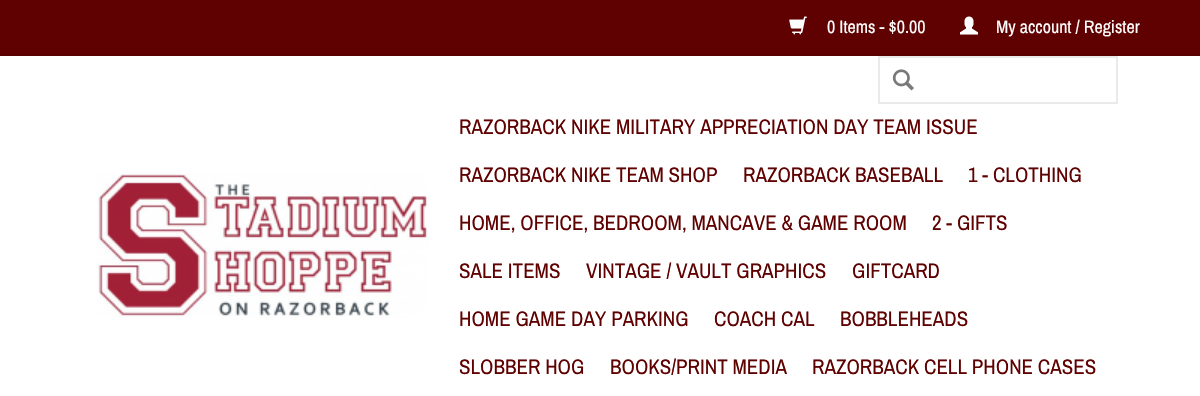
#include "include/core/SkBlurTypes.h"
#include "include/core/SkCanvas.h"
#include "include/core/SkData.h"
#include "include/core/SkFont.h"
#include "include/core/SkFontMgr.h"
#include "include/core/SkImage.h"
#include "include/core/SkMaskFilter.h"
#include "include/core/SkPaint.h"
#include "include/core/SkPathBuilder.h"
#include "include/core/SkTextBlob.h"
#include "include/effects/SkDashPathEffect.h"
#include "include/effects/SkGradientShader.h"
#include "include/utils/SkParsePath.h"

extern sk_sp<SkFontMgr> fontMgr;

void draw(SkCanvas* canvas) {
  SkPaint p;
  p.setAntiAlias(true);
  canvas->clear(SK_ColorWHITE);
  p.setColor(SkColorSetRGB(96, 1, 1));
  canvas->drawRect(SkRect::MakeLTRB(0, 0, 1200, 54), p);
  p.setColor(SkColorSetRGB(89, 0, 0));
  canvas->drawRect(SkRect::MakeLTRB(0, 54, 1200, 56), p);
  canvas->drawImageRect(SkImages::DeferredFromEncodedData(SkData::MakeFromFileName("images/1.png")), SkRect::MakeLTRB(789, 16, 807, 35), SkSamplingOptions());
  canvas->drawImageRect(SkImages::DeferredFromEncodedData(SkData::MakeFromFileName("images/2.png")), SkRect::MakeLTRB(960, 16, 978, 35), SkSamplingOptions());
  canvas->drawImageRect(SkImages::DeferredFromEncodedData(SkData::MakeFromFileName("images/3.png")), SkRect::MakeLTRB(96, 174, 429, 318), SkSamplingOptions());
  p.setStyle(SkPaint::kStroke_Style);
  p.setStrokeWidth(2);
  p.setColor(SkColorSetRGB(234, 234, 234));
  canvas->drawRect(SkRect::MakeLTRB(879, 57, 1117, 103), p);
  canvas->drawImageRect(SkImages::DeferredFromEncodedData(SkData::MakeFromFileName("images/4.png")), SkRect::MakeLTRB(892, 69, 914, 91), SkSamplingOptions());
  SkFont font1(fontMgr->matchFamilyStyle("Archivo Narrow", SkFontStyle::Normal()), 18);
  font1.setSubpixel(true);
  p.setStyle(SkPaint::kFill_Style);
  p.setColor(SK_ColorWHITE);
  canvas->drawString("0 Items - $0.00", 827, 33, font1, p);
  canvas->drawString("My account / Register", 996, 33, font1, p);
  SkFont font2(fontMgr->matchFamilyStyle("Archivo Narrow", SkFontStyle::Normal()), 21);
  font2.setSubpixel(true);
  p.setColor(SkColorSetRGB(96, 1, 1));
  canvas->drawString("RAZORBACK NIKE MILITARY APPRECIATION DAY TEAM ISSUE", 459, 134, font2, p);
  canvas->drawString("RAZORBACK NIKE TEAM SHOP", 459, 182, font2, p);
  canvas->drawString("RAZORBACK BASEBALL", 743, 182, font2, p);
  canvas->drawString("1 - CLOTHING", 968, 182, font2, p);
  canvas->drawString("HOME, OFFICE, BEDROOM, MANCAVE & GAME ROOM", 459, 230, font2, p);
  canvas->drawString("2 - GIFTS", 932, 230, font2, p);
  canvas->drawString("SALE ITEMS", 459, 278, font2, p);
  canvas->drawString("VINTAGE / VAULT GRAPHICS", 586, 278, font2, p);
  canvas->drawString("GIFTCARD", 852, 278, font2, p);
  canvas->drawString("HOME GAME DAY PARKING", 459, 326, font2, p);
  canvas->drawString("COACH CAL", 714, 326, font2, p);
  canvas->drawString("BOBBLEHEADS", 840, 326, font2, p);
  canvas->drawString("SLOBBER HOG", 459, 374, font2, p);
  canvas->drawString("BOOKS/PRINT MEDIA", 610, 374, font2, p);
  canvas->drawString("RAZORBACK CELL PHONE CASES", 812, 374, font2, p);
}
